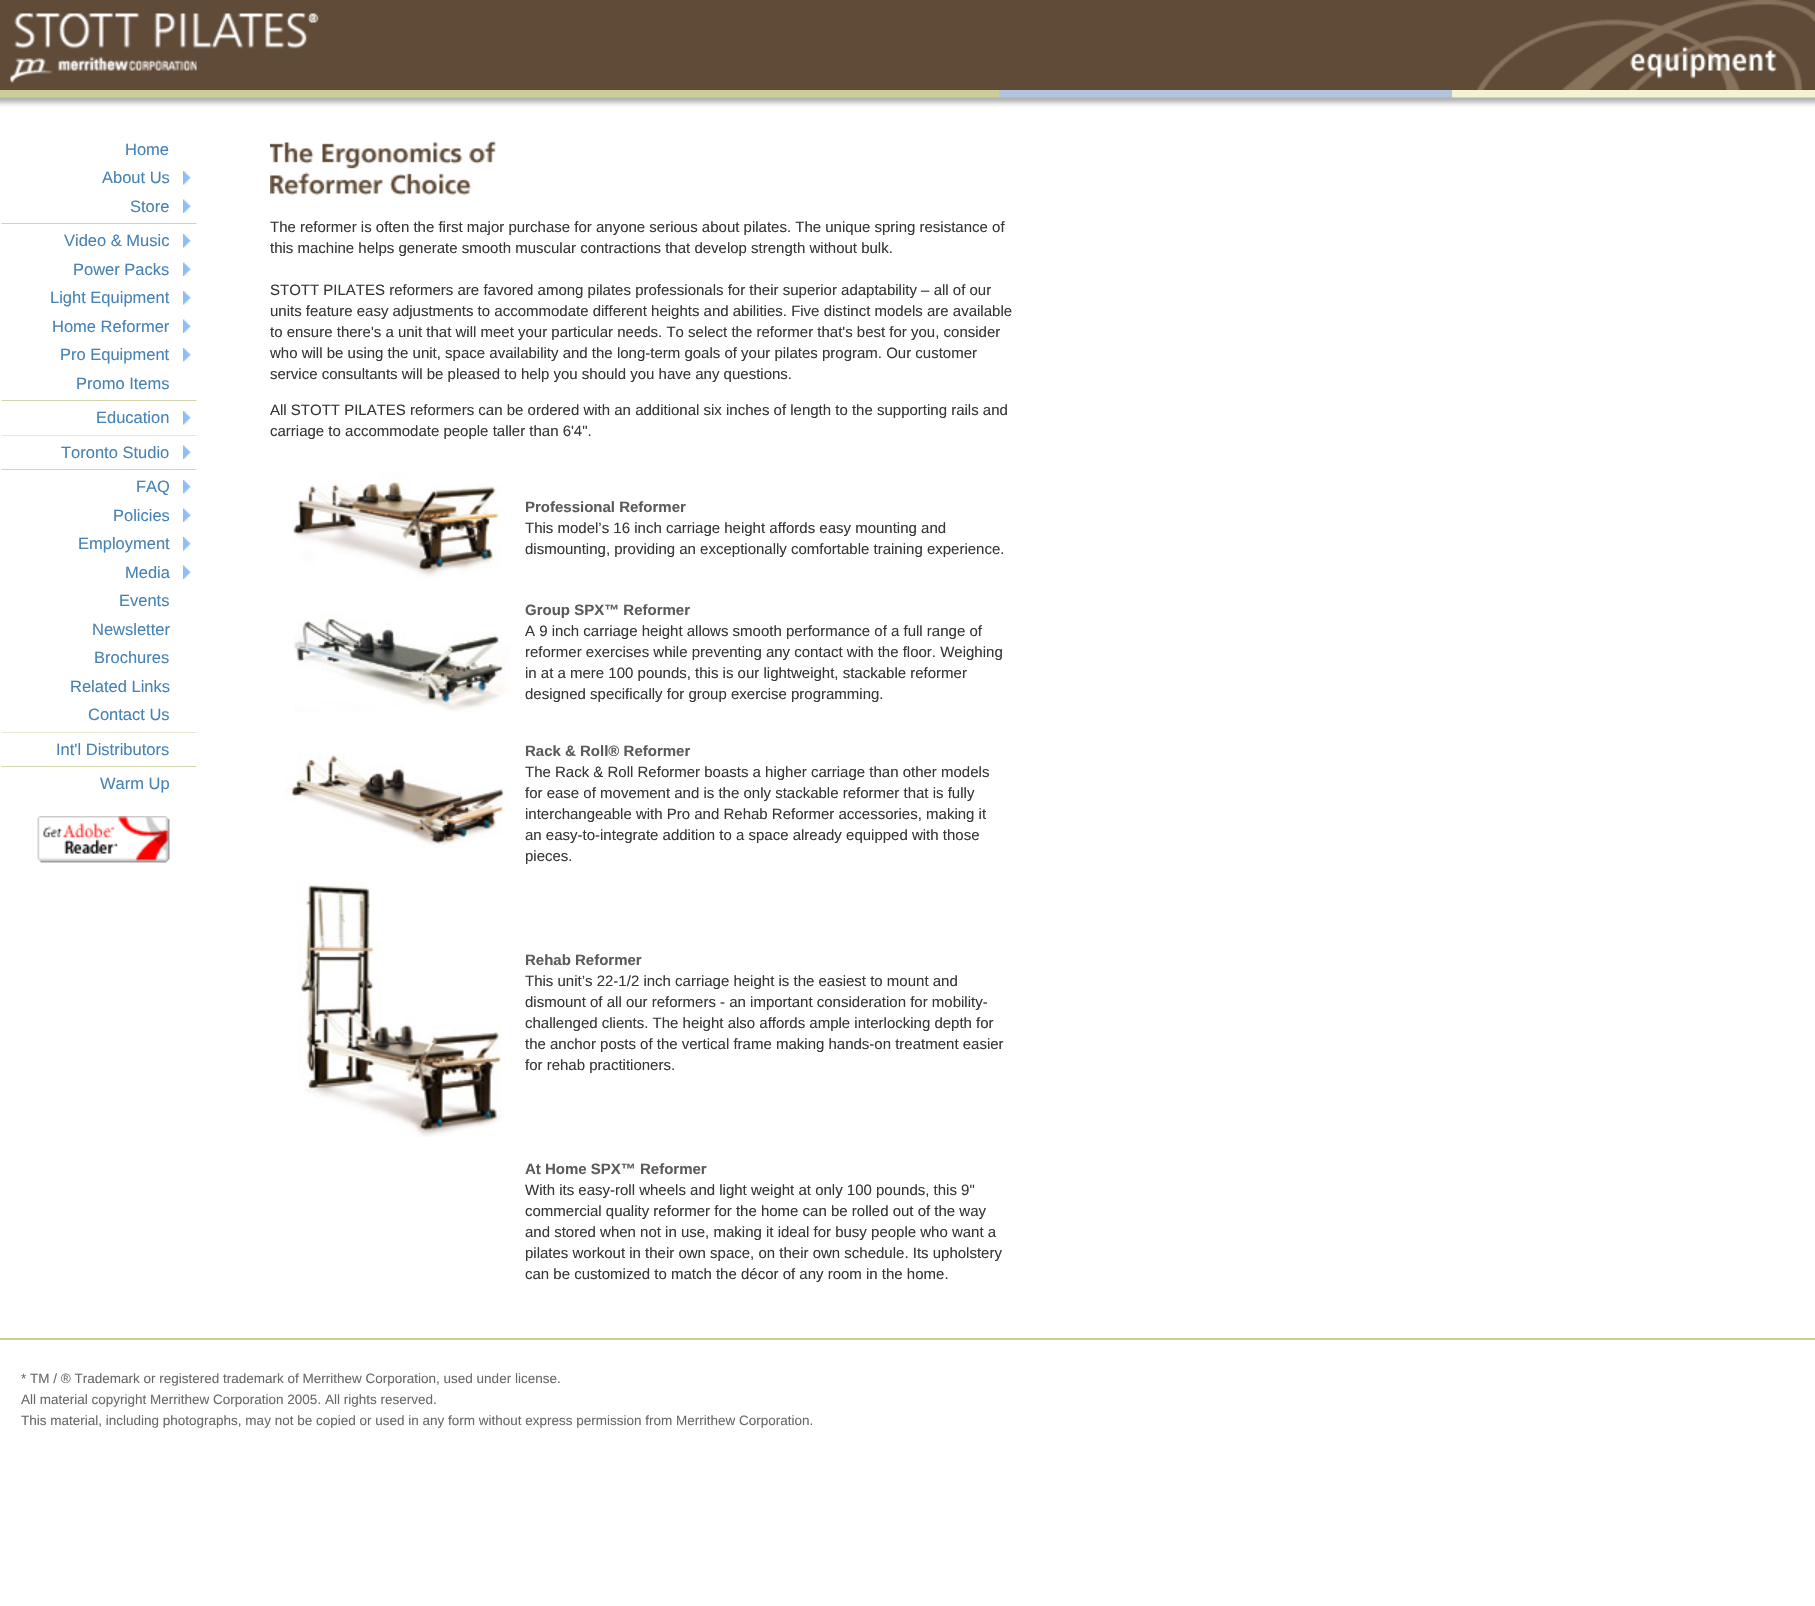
#include "include/core/SkBlurTypes.h"
#include "include/core/SkCanvas.h"
#include "include/core/SkData.h"
#include "include/core/SkFont.h"
#include "include/core/SkFontMgr.h"
#include "include/core/SkImage.h"
#include "include/core/SkMaskFilter.h"
#include "include/core/SkPaint.h"
#include "include/core/SkPathBuilder.h"
#include "include/core/SkTextBlob.h"
#include "include/effects/SkDashPathEffect.h"
#include "include/effects/SkGradientShader.h"
#include "include/utils/SkParsePath.h"

extern sk_sp<SkFontMgr> fontMgr;

void draw(SkCanvas* canvas) {
  SkPaint p;
  p.setAntiAlias(true);
  canvas->clear(SK_ColorWHITE);
  p.setColor(SkColorSetRGB(95, 75, 55));
  canvas->drawRect(SkRect::MakeLTRB(0, 0, 1477, 90), p);
  canvas->drawImageRect(SkImages::DeferredFromEncodedData(SkData::MakeFromFileName("images/1.png")), SkRect::MakeLTRB(10, 13, 319, 83), SkSamplingOptions());
  canvas->drawImageRect(SkImages::DeferredFromEncodedData(SkData::MakeFromFileName("images/2.png")), SkRect::MakeLTRB(1477, 0, 1815, 90), SkSamplingOptions());
  canvas->drawImageRect(SkImages::DeferredFromEncodedData(SkData::MakeFromFileName("images/3.png")), SkRect::MakeLTRB(1630, 46, 1777, 79), SkSamplingOptions());
  p.setColor(SkColorSetRGB(204, 204, 153));
  canvas->drawRect(SkRect::MakeLTRB(0, 90, 999, 98), p);
  p.setColor(SkColorSetRGB(176, 196, 222));
  canvas->drawRect(SkRect::MakeLTRB(999, 90, 1452, 98), p);
  p.setColor(SkColorSetRGB(243, 243, 212));
  canvas->drawRect(SkRect::MakeLTRB(1452, 90, 1815, 98), p);
  canvas->drawImageRect(SkImages::DeferredFromEncodedData(SkData::MakeFromFileName("images/4.png")), SkRect::MakeLTRB(0, 97, 1815, 107), SkSamplingOptions());
  canvas->drawImageRect(SkImages::DeferredFromEncodedData(SkData::MakeFromFileName("images/5.png")), SkRect::MakeLTRB(183, 171, 191, 185), SkSamplingOptions());
  canvas->drawImageRect(SkImages::DeferredFromEncodedData(SkData::MakeFromFileName("images/6.png")), SkRect::MakeLTRB(183, 199, 191, 213), SkSamplingOptions());
  canvas->drawImageRect(SkImages::DeferredFromEncodedData(SkData::MakeFromFileName("images/7.png")), SkRect::MakeLTRB(1, 223, 197, 224), SkSamplingOptions());
  canvas->drawImageRect(SkImages::DeferredFromEncodedData(SkData::MakeFromFileName("images/5.png")), SkRect::MakeLTRB(183, 234, 191, 248), SkSamplingOptions());
  canvas->drawImageRect(SkImages::DeferredFromEncodedData(SkData::MakeFromFileName("images/6.png")), SkRect::MakeLTRB(183, 262, 191, 276), SkSamplingOptions());
  canvas->drawImageRect(SkImages::DeferredFromEncodedData(SkData::MakeFromFileName("images/5.png")), SkRect::MakeLTRB(183, 291, 191, 305), SkSamplingOptions());
  canvas->drawImageRect(SkImages::DeferredFromEncodedData(SkData::MakeFromFileName("images/6.png")), SkRect::MakeLTRB(183, 319, 191, 333), SkSamplingOptions());
  canvas->drawImageRect(SkImages::DeferredFromEncodedData(SkData::MakeFromFileName("images/5.png")), SkRect::MakeLTRB(183, 348, 191, 362), SkSamplingOptions());
  canvas->drawImageRect(SkImages::DeferredFromEncodedData(SkData::MakeFromFileName("images/7.png")), SkRect::MakeLTRB(1, 400, 197, 401), SkSamplingOptions());
  canvas->drawImageRect(SkImages::DeferredFromEncodedData(SkData::MakeFromFileName("images/5.png")), SkRect::MakeLTRB(183, 411, 191, 425), SkSamplingOptions());
  canvas->drawImageRect(SkImages::DeferredFromEncodedData(SkData::MakeFromFileName("images/8.png")), SkRect::MakeLTRB(1, 435, 197, 436), SkSamplingOptions());
  canvas->drawImageRect(SkImages::DeferredFromEncodedData(SkData::MakeFromFileName("images/6.png")), SkRect::MakeLTRB(183, 445, 191, 459), SkSamplingOptions());
  canvas->drawImageRect(SkImages::DeferredFromEncodedData(SkData::MakeFromFileName("images/7.png")), SkRect::MakeLTRB(1, 469, 197, 470), SkSamplingOptions());
  canvas->drawImageRect(SkImages::DeferredFromEncodedData(SkData::MakeFromFileName("images/5.png")), SkRect::MakeLTRB(183, 480, 191, 494), SkSamplingOptions());
  canvas->drawImageRect(SkImages::DeferredFromEncodedData(SkData::MakeFromFileName("images/6.png")), SkRect::MakeLTRB(183, 508, 191, 522), SkSamplingOptions());
  canvas->drawImageRect(SkImages::DeferredFromEncodedData(SkData::MakeFromFileName("images/5.png")), SkRect::MakeLTRB(183, 537, 191, 551), SkSamplingOptions());
  canvas->drawImageRect(SkImages::DeferredFromEncodedData(SkData::MakeFromFileName("images/6.png")), SkRect::MakeLTRB(183, 565, 191, 579), SkSamplingOptions());
  canvas->drawImageRect(SkImages::DeferredFromEncodedData(SkData::MakeFromFileName("images/8.png")), SkRect::MakeLTRB(1, 732, 197, 733), SkSamplingOptions());
  canvas->drawImageRect(SkImages::DeferredFromEncodedData(SkData::MakeFromFileName("images/7.png")), SkRect::MakeLTRB(1, 766, 197, 767), SkSamplingOptions());
  canvas->drawImageRect(SkImages::DeferredFromEncodedData(SkData::MakeFromFileName("images/9.png")), SkRect::MakeLTRB(37, 816, 170, 863), SkSamplingOptions());
  canvas->drawImageRect(SkImages::DeferredFromEncodedData(SkData::MakeFromFileName("images/10.png")), SkRect::MakeLTRB(270, 140, 496, 196), SkSamplingOptions());
  canvas->drawImageRect(SkImages::DeferredFromEncodedData(SkData::MakeFromFileName("images/11.png")), SkRect::MakeLTRB(291, 473, 501, 580), SkSamplingOptions());
  canvas->drawImageRect(SkImages::DeferredFromEncodedData(SkData::MakeFromFileName("images/12.png")), SkRect::MakeLTRB(294, 611, 510, 712), SkSamplingOptions());
  canvas->drawImageRect(SkImages::DeferredFromEncodedData(SkData::MakeFromFileName("images/13.png")), SkRect::MakeLTRB(285, 753, 510, 849), SkSamplingOptions());
  canvas->drawImageRect(SkImages::DeferredFromEncodedData(SkData::MakeFromFileName("images/14.png")), SkRect::MakeLTRB(297, 882, 502, 1137), SkSamplingOptions());
  p.setColor(SkColorSetRGB(204, 204, 153));
  canvas->drawRect(SkRect::MakeLTRB(0, 1338, 1815, 1340), p);
  SkFont font1(fontMgr->matchFamilyStyle("Liberation Sans", SkFontStyle::Normal()), 16.5f);
  font1.setSubpixel(true);
  p.setColor(SkColorSetRGB(70, 130, 180));
  canvas->drawString("Home", 125, 155, font1, p);
  canvas->drawString("About Us", 102, 183, font1, p);
  canvas->drawString("Store", 130, 212, font1, p);
  canvas->drawString("Video & Music", 64, 246, font1, p);
  canvas->drawString("Power Packs", 73, 275, font1, p);
  canvas->drawString("Light Equipment", 50, 303, font1, p);
  canvas->drawString("Home Reformer", 52, 332, font1, p);
  canvas->drawString("Pro Equipment", 60, 360, font1, p);
  canvas->drawString("Promo Items", 76, 389, font1, p);
  canvas->drawString("Education", 96, 423, font1, p);
  canvas->drawString("Toronto Studio", 61, 458, font1, p);
  canvas->drawString("FAQ", 136, 492, font1, p);
  canvas->drawString("Policies", 113, 521, font1, p);
  canvas->drawString("Employment", 78, 549, font1, p);
  canvas->drawString("Media", 125, 578, font1, p);
  canvas->drawString("Events", 119, 606, font1, p);
  canvas->drawString("Newsletter", 92, 635, font1, p);
  canvas->drawString("Brochures", 94, 663, font1, p);
  canvas->drawString("Related Links", 70, 692, font1, p);
  canvas->drawString("Contact Us", 88, 720, font1, p);
  canvas->drawString("Int'l Distributors", 56, 755, font1, p);
  canvas->drawString("Warm Up", 100, 789, font1, p);
  SkFont font2(fontMgr->matchFamilyStyle("Liberation Sans", SkFontStyle::Normal()), 15);
  font2.setSubpixel(true);
  p.setColor(SkColorSetRGB(55, 55, 55));
  canvas->drawString("The reformer is often the first major purchase for anyone serious about pilates. The unique spring resistance of", 270, 232, font2, p);
  canvas->drawString("this machine helps generate smooth muscular contractions that develop strength without bulk.", 270, 253, font2, p);
  canvas->drawString("STOTT PILATES reformers are favored among pilates professionals for their superior adaptability – all of our", 270, 295, font2, p);
  canvas->drawString("units feature easy adjustments to accommodate different heights and abilities. Five distinct models are available", 270, 316, font2, p);
  canvas->drawString("to ensure there's a unit that will meet your particular needs. To select the reformer that's best for you, consider", 270, 337, font2, p);
  canvas->drawString("who will be using the unit, space availability and the long-term goals of your pilates program. Our customer", 270, 358, font2, p);
  canvas->drawString("service consultants will be pleased to help you should you have any questions.", 270, 379, font2, p);
  canvas->drawString("All STOTT PILATES reformers can be ordered with an additional six inches of length to the supporting rails and", 270, 415, font2, p);
  canvas->drawString("carriage to accommodate people taller than 6'4\".", 270, 436, font2, p);
  SkFont font3(fontMgr->matchFamilyStyle("Liberation Sans", SkFontStyle::Bold()), 15);
  font3.setSubpixel(true);
  p.setColor(SkColorSetRGB(91, 91, 91));
  canvas->drawString("Professional Reformer", 525, 512, font3, p);
  p.setColor(SkColorSetRGB(55, 55, 55));
  canvas->drawString("This model’s 16 inch carriage height affords easy mounting and", 525, 533, font2, p);
  canvas->drawString("dismounting, providing an exceptionally comfortable training experience.", 525, 554, font2, p);
  p.setColor(SkColorSetRGB(91, 91, 91));
  canvas->drawString("Group SPX™ Reformer", 525, 615, font3, p);
  p.setColor(SkColorSetRGB(55, 55, 55));
  canvas->drawString("A 9 inch carriage height allows smooth performance of a full range of", 525, 636, font2, p);
  canvas->drawString("reformer exercises while preventing any contact with the floor. Weighing", 525, 657, font2, p);
  canvas->drawString("in at a mere 100 pounds, this is our lightweight, stackable reformer", 525, 678, font2, p);
  canvas->drawString("designed specifically for group exercise programming.", 525, 699, font2, p);
  p.setColor(SkColorSetRGB(91, 91, 91));
  canvas->drawString("Rack & Roll® Reformer", 525, 756, font3, p);
  p.setColor(SkColorSetRGB(55, 55, 55));
  canvas->drawString("The Rack & Roll Reformer boasts a higher carriage than other models", 525, 777, font2, p);
  canvas->drawString("for ease of movement and is the only stackable reformer that is fully", 525, 798, font2, p);
  canvas->drawString("interchangeable with Pro and Rehab Reformer accessories, making it", 525, 819, font2, p);
  canvas->drawString("an easy-to-integrate addition to a space already equipped with those", 525, 840, font2, p);
  canvas->drawString("pieces.", 525, 861, font2, p);
  p.setColor(SkColorSetRGB(91, 91, 91));
  canvas->drawString("Rehab Reformer", 525, 965, font3, p);
  p.setColor(SkColorSetRGB(55, 55, 55));
  canvas->drawString("This unit’s 22-1/2 inch carriage height is the easiest to mount and", 525, 986, font2, p);
  canvas->drawString("dismount of all our reformers - an important consideration for mobility-", 525, 1007, font2, p);
  canvas->drawString("challenged clients. The height also affords ample interlocking depth for", 525, 1028, font2, p);
  canvas->drawString("the anchor posts of the vertical frame making hands-on treatment easier", 525, 1049, font2, p);
  canvas->drawString("for rehab practitioners.", 525, 1070, font2, p);
  p.setColor(SkColorSetRGB(91, 91, 91));
  canvas->drawString("At Home SPX™ Reformer", 525, 1174, font3, p);
  p.setColor(SkColorSetRGB(55, 55, 55));
  canvas->drawString("With its easy-roll wheels and light weight at only 100 pounds, this 9\"", 525, 1195, font2, p);
  canvas->drawString("commercial quality reformer for the home can be rolled out of the way", 525, 1216, font2, p);
  canvas->drawString("and stored when not in use, making it ideal for busy people who want a", 525, 1237, font2, p);
  canvas->drawString("pilates workout in their own space, on their own schedule. Its upholstery", 525, 1258, font2, p);
  canvas->drawString("can be customized to match the décor of any room in the home.", 525, 1279, font2, p);
  SkFont font4(fontMgr->matchFamilyStyle("Liberation Sans", SkFontStyle::Normal()), 13.5f);
  font4.setSubpixel(true);
  p.setColor(SkColorSetRGB(105, 105, 105));
  canvas->drawString("* TM / ® Trademark or registered trademark of Merrithew Corporation, used under license.", 21, 1383, font4, p);
  canvas->drawString("All material copyright Merrithew Corporation 2005. All rights reserved.", 21, 1404, font4, p);
  canvas->drawString("This material, including photographs, may not be copied or used in any form without express permission from Merrithew Corporation.", 21, 1425, font4, p);
}
